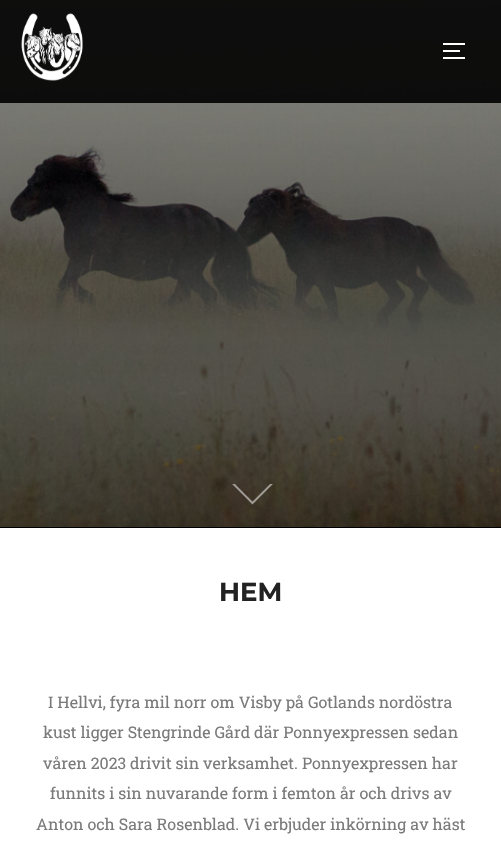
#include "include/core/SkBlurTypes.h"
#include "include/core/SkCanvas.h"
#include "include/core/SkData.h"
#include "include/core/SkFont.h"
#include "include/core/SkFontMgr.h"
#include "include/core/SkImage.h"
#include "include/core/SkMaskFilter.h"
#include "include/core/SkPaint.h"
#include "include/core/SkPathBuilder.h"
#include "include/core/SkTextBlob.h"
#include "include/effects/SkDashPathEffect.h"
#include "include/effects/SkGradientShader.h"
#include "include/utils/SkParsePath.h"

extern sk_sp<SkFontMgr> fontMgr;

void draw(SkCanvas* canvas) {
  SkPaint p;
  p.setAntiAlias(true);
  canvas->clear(SK_ColorWHITE);
  p.setColor(SK_ColorBLACK);
  canvas->drawRect(SkRect::MakeLTRB(0, 527, 501, 528), p);
  canvas->drawImageRect(SkImages::DeferredFromEncodedData(SkData::MakeFromFileName("images/1.png")), SkRect::MakeLTRB(0, 0, 501, 527), SkSamplingOptions());
  canvas->save();
  canvas->clipRect(SkRect::MakeLTRB(223, 484, 279, 508));
  p.setStyle(SkPaint::kStroke_Style);
  p.setStrokeWidth(2);
  p.setColor(SkColorSetARGB(128, 255, 255, 255));
  canvas->drawPath(SkPathBuilder().moveTo(252.5f, 463).lineTo(272.5f, 483).lineTo(252.5f, 503).lineTo(232.5f, 483).close().detach(), p);
  canvas->restore();
  p.setStyle(SkPaint::kFill_Style);
  p.setColor(SkColorSetARGB(230, 0, 0, 0));
  canvas->drawRect(SkRect::MakeLTRB(0, 0, 501, 103), p);
  canvas->drawImageRect(SkImages::DeferredFromEncodedData(SkData::MakeFromFileName("images/2.png")), SkRect::MakeLTRB(21, 13, 83, 81), SkSamplingOptions());
  p.setColor(SK_ColorWHITE);
  canvas->drawRect(SkRect::MakeLTRB(443, 43, 465, 45), p);
  canvas->drawRect(SkRect::MakeLTRB(443, 50, 460, 52), p);
  canvas->drawRect(SkRect::MakeLTRB(443, 57, 465, 59), p);
  SkFont font1(fontMgr->matchFamilyStyle("Montserrat", SkFontStyle::Bold()), 26);
  font1.setSubpixel(true);
  p.setColor(SkColorSetRGB(34, 34, 34));
  canvas->drawString("HEM", 219, 601, font1, p);
  SkFont font2(fontMgr->matchFamilyStyle("Roboto Slab", SkFontStyle::Normal()), 16);
  font2.setSubpixel(true);
  p.setColor(SkColorSetRGB(122, 122, 122));
  canvas->drawString("I Hellvi, fyra mil norr om Visby på Gotlands nordöstra", 48, 708, font2, p);
  canvas->drawString("kust ligger Stengrinde Gård där Ponnyexpressen sedan", 43, 738, font2, p);
  canvas->drawString("våren 2023 drivit sin verksamhet. Ponnyexpressen har", 43, 769, font2, p);
  canvas->drawString("funnits i sin nuvarande form i femton år och drivs av", 50, 799, font2, p);
  canvas->drawString("Anton och Sara Rosenblad. Vi erbjuder inkörning av häst", 36, 830, font2, p);
}
